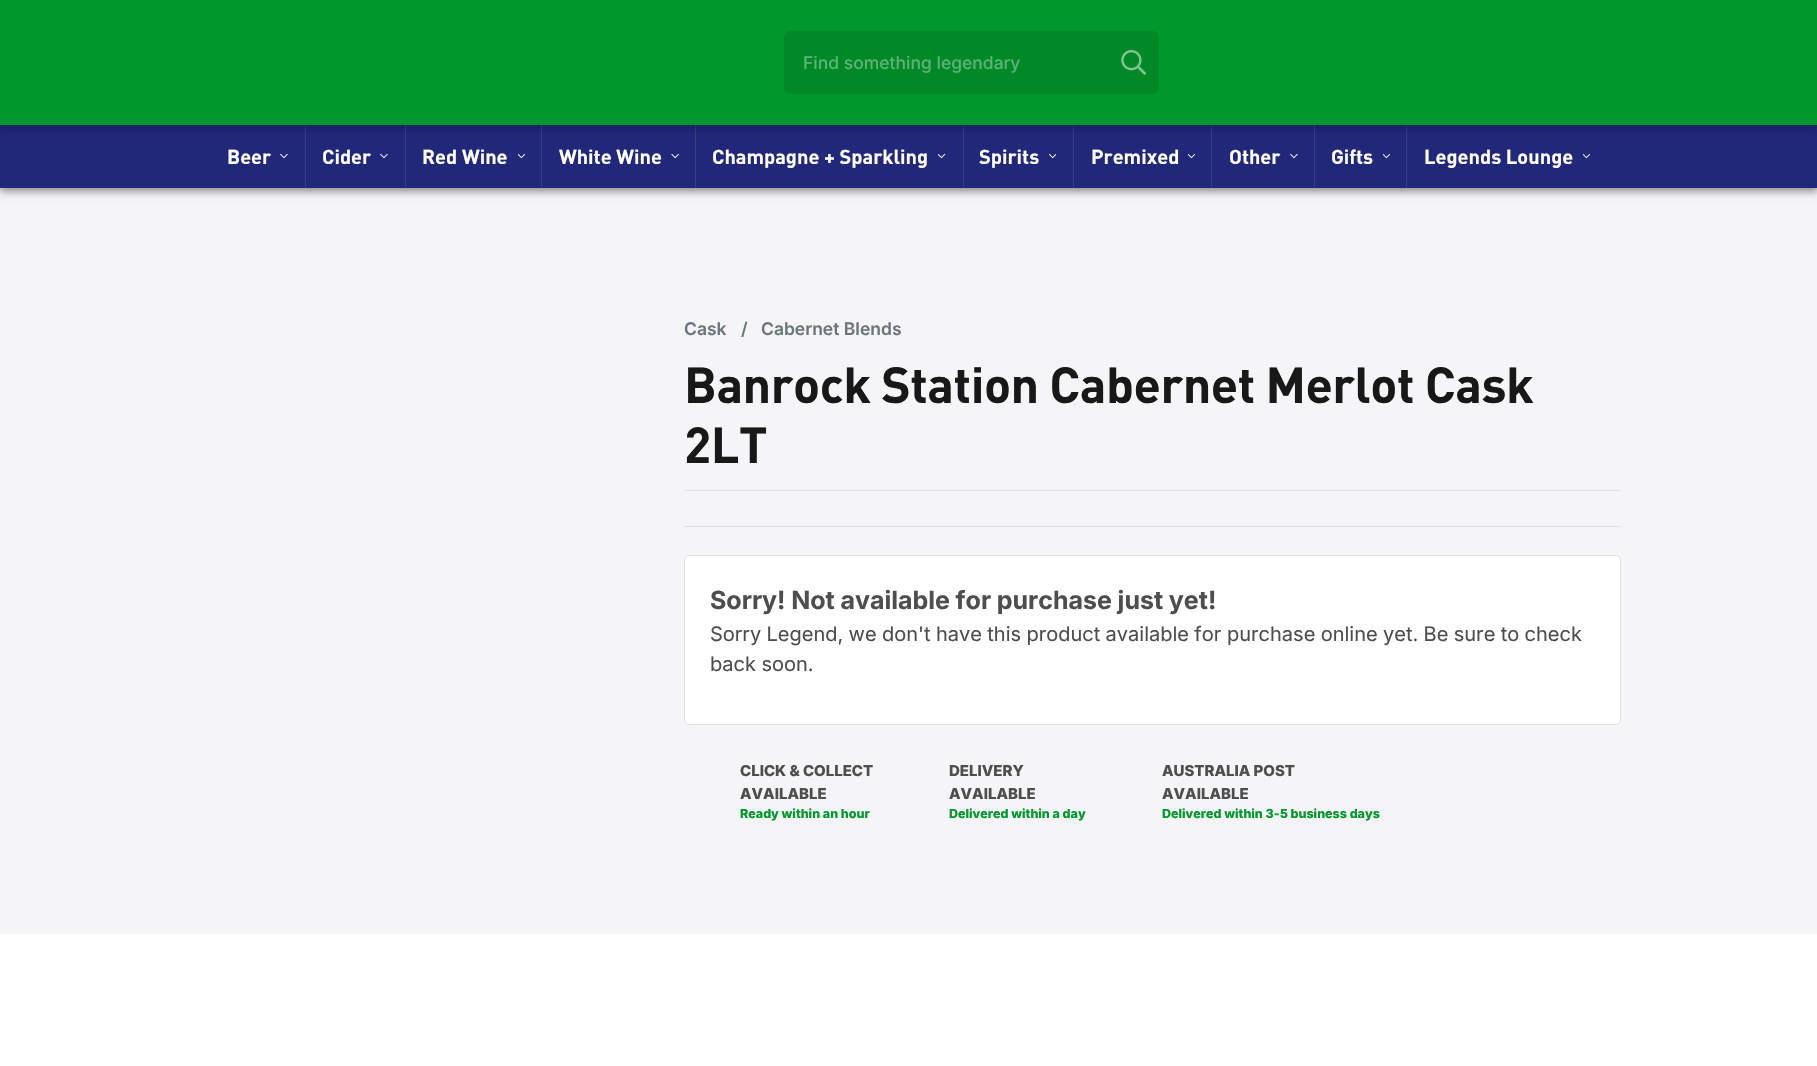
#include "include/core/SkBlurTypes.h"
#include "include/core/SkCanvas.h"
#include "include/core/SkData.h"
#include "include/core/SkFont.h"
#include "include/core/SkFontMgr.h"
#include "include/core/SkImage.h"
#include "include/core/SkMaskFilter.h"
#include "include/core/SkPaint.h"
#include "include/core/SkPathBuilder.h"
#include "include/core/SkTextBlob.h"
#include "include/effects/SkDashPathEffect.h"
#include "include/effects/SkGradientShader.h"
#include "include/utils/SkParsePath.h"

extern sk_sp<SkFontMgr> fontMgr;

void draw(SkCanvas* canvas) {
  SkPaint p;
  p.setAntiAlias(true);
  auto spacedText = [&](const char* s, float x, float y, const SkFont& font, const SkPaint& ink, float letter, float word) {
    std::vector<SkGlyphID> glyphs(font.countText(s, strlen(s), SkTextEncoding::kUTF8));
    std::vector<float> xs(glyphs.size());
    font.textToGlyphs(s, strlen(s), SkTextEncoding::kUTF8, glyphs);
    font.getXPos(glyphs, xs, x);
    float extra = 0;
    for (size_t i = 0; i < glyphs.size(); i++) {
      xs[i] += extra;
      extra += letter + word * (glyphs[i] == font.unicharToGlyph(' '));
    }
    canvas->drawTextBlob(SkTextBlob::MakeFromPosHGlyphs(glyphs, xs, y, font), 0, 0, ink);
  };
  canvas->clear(SK_ColorWHITE);
  p.setColor(SkColorSetRGB(245, 245, 247));
  canvas->drawRect(SkRect::MakeLTRB(0, 188, 1817, 934), p);
  p.setColor(SkColorSetARGB(64, 0, 0, 0));
  p.setMaskFilter(SkMaskFilter::MakeBlur(kNormal_SkBlurStyle, 4));
  canvas->drawRect(SkRect::MakeLTRB(0, 4, 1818, 191), p);
  p.setMaskFilter(nullptr);
  p.setMaskFilter(SkMaskFilter::MakeBlur(kNormal_SkBlurStyle, 4));
  canvas->drawRect(SkRect::MakeLTRB(0, 129, 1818, 191), p);
  p.setMaskFilter(nullptr);
  p.setColor(SkColorSetRGB(33, 40, 122));
  canvas->drawRect(SkRect::MakeLTRB(0, 125, 1817, 188), p);
  p.setColor(SkColorSetRGB(55, 62, 135));
  canvas->drawRect(SkRect::MakeLTRB(305, 125, 306, 188), p);
  canvas->drawRect(SkRect::MakeLTRB(405, 125, 406, 188), p);
  canvas->drawRect(SkRect::MakeLTRB(541, 125, 542, 188), p);
  canvas->drawRect(SkRect::MakeLTRB(695, 125, 696, 188), p);
  canvas->drawRect(SkRect::MakeLTRB(963, 125, 964, 188), p);
  canvas->drawRect(SkRect::MakeLTRB(1073, 125, 1074, 188), p);
  canvas->drawRect(SkRect::MakeLTRB(1211, 125, 1212, 188), p);
  canvas->drawRect(SkRect::MakeLTRB(1314, 125, 1315, 188), p);
  canvas->drawRect(SkRect::MakeLTRB(1406, 125, 1407, 188), p);
  p.setColor(SkColorSetARGB(64, 0, 0, 0));
  p.setMaskFilter(SkMaskFilter::MakeBlur(kNormal_SkBlurStyle, 4));
  canvas->drawRect(SkRect::MakeLTRB(0, 4, 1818, 129), p);
  p.setMaskFilter(nullptr);
  p.setColor(SkColorSetRGB(0, 152, 44));
  canvas->drawRect(SkRect::MakeLTRB(0, 0, 1817, 125), p);
  p.setColor(SkColorSetRGB(1, 137, 40));
  canvas->drawRoundRect(SkRect::MakeLTRB(784, 31, 1159, 94), 6, 6, p);
  canvas->drawImageRect(SkImages::DeferredFromEncodedData(SkData::MakeFromFileName("images/1.png")), SkRect::MakeLTRB(1121, 50, 1146, 75), SkSamplingOptions());
  canvas->drawImageRect(SkImages::DeferredFromEncodedData(SkData::MakeFromFileName("images/2.png")), SkRect::MakeLTRB(280, 154, 288, 159), SkSamplingOptions());
  canvas->drawImageRect(SkImages::DeferredFromEncodedData(SkData::MakeFromFileName("images/2.png")), SkRect::MakeLTRB(380, 154, 388, 159), SkSamplingOptions());
  canvas->drawImageRect(SkImages::DeferredFromEncodedData(SkData::MakeFromFileName("images/3.png")), SkRect::MakeLTRB(518, 154, 525, 159), SkSamplingOptions());
  canvas->drawImageRect(SkImages::DeferredFromEncodedData(SkData::MakeFromFileName("images/4.png")), SkRect::MakeLTRB(671, 154, 679, 159), SkSamplingOptions());
  canvas->drawImageRect(SkImages::DeferredFromEncodedData(SkData::MakeFromFileName("images/5.png")), SkRect::MakeLTRB(938, 154, 946, 159), SkSamplingOptions());
  canvas->drawImageRect(SkImages::DeferredFromEncodedData(SkData::MakeFromFileName("images/6.png")), SkRect::MakeLTRB(1049, 154, 1056, 159), SkSamplingOptions());
  canvas->drawImageRect(SkImages::DeferredFromEncodedData(SkData::MakeFromFileName("images/3.png")), SkRect::MakeLTRB(1188, 154, 1195, 159), SkSamplingOptions());
  canvas->drawImageRect(SkImages::DeferredFromEncodedData(SkData::MakeFromFileName("images/2.png")), SkRect::MakeLTRB(1290, 154, 1298, 159), SkSamplingOptions());
  canvas->drawImageRect(SkImages::DeferredFromEncodedData(SkData::MakeFromFileName("images/3.png")), SkRect::MakeLTRB(1383, 154, 1390, 159), SkSamplingOptions());
  canvas->drawImageRect(SkImages::DeferredFromEncodedData(SkData::MakeFromFileName("images/3.png")), SkRect::MakeLTRB(1583, 154, 1590, 159), SkSamplingOptions());
  p.setColor(SkColorSetRGB(224, 224, 229));
  canvas->drawRect(SkRect::MakeLTRB(684, 490, 1621, 491), p);
  canvas->drawRect(SkRect::MakeLTRB(684, 526, 1621, 527), p);
  p.setColor(SK_ColorWHITE);
  canvas->drawRoundRect(SkRect::MakeLTRB(684, 555, 1621, 725), 5, 5, p);
  p.setStyle(SkPaint::kStroke_Style);
  p.setStrokeWidth(1);
  p.setColor(SkColorSetARGB(31, 0, 0, 0));
  canvas->drawRoundRect(SkRect::MakeLTRB(684.5f, 555.5f, 1620.5f, 724.5f), 4.5f, 4.5f, p);
  SkFont font1(fontMgr->matchFamilyStyle("Inter", SkFontStyle(500, SkFontStyle::kNormal_Width, SkFontStyle::kUpright_Slant)), 17.5f);
  font1.setSubpixel(true);
  p.setStyle(SkPaint::kFill_Style);
  p.setColor(SkColorSetRGB(93, 179, 118));
  canvas->drawString("Find something legendary", 803, 69, font1, p);
  SkFont font2(fontMgr->matchFamilyStyle("DIN", SkFontStyle::Bold()), 20);
  font2.setSubpixel(true);
  p.setColor(SK_ColorWHITE);
  canvas->drawString("Beer", 227, 164, font2, p);
  canvas->drawString("Cider", 322, 164, font2, p);
  canvas->drawString("Red Wine", 422, 164, font2, p);
  canvas->drawString("White Wine", 559, 164, font2, p);
  canvas->drawString("Champagne + Sparkling", 712, 164, font2, p);
  canvas->drawString("Spirits", 979, 164, font2, p);
  canvas->drawString("Premixed", 1091, 164, font2, p);
  canvas->drawString("Other", 1229, 164, font2, p);
  canvas->drawString("Gifts", 1331, 164, font2, p);
  canvas->drawString("Legends Lounge", 1424, 164, font2, p);
  SkFont font3(fontMgr->matchFamilyStyle("Inter", SkFontStyle(600, SkFontStyle::kNormal_Width, SkFontStyle::kUpright_Slant)), 17.5f);
  font3.setSubpixel(true);
  p.setColor(SkColorSetRGB(108, 117, 125));
  canvas->drawString("Cask", 684, 335, font3, p);
  canvas->drawString("/", 741, 335, font3, p);
  canvas->drawString("Cabernet Blends", 761, 335, font3, p);
  SkFont font4(fontMgr->matchFamilyStyle("DIN", SkFontStyle::Bold()), 50);
  font4.setSubpixel(true);
  p.setColor(SkColorSetRGB(24, 24, 24));
  spacedText("Banrock Station Cabernet Merlot Cask", 684, 403, font4, p, -0.5f, -0.5f);
  spacedText("2LT", 684, 463, font4, p, -0.5f, 0);
  SkFont font5(fontMgr->matchFamilyStyle("Inter", SkFontStyle::Bold()), 25);
  font5.setSubpixel(true);
  p.setColor(SkColorSetRGB(78, 78, 78));
  spacedText("Sorry! Not available for purchase just yet!", 710, 609, font5, p, 0, -0.25f);
  SkFont font6(fontMgr->matchFamilyStyle("Inter", SkFontStyle::Normal()), 20);
  font6.setSubpixel(true);
  spacedText("Sorry Legend, we don't have this product available for", 710, 641, font6, p, 0, -0.25f);
  spacedText("purchase online yet. Be sure to check", 1227, 641, font6, p, 0, -0.25f);
  canvas->drawString("back soon.", 710, 671, font6, p);
  SkFont font7(fontMgr->matchFamilyStyle("Inter", SkFontStyle(800, SkFontStyle::kNormal_Width, SkFontStyle::kUpright_Slant)), 15);
  font7.setSubpixel(true);
  canvas->drawString("CLICK & COLLECT", 740, 776, font7, p);
  canvas->drawString("AVAILABLE", 740, 799, font7, p);
  SkFont font8(fontMgr->matchFamilyStyle("Inter", SkFontStyle(800, SkFontStyle::kNormal_Width, SkFontStyle::kUpright_Slant)), 12.5f);
  font8.setSubpixel(true);
  p.setColor(SkColorSetRGB(0, 152, 44));
  canvas->drawString("Ready within an hour", 740, 818, font8, p);
  p.setColor(SkColorSetRGB(78, 78, 78));
  canvas->drawString("DELIVERY", 949, 776, font7, p);
  canvas->drawString("AVAILABLE", 949, 799, font7, p);
  p.setColor(SkColorSetRGB(0, 152, 44));
  canvas->drawString("Delivered within a day", 949, 818, font8, p);
  p.setColor(SkColorSetRGB(78, 78, 78));
  canvas->drawString("AUSTRALIA POST", 1162, 776, font7, p);
  canvas->drawString("AVAILABLE", 1162, 799, font7, p);
  p.setColor(SkColorSetRGB(0, 152, 44));
  canvas->drawString("Delivered within 3-5 business days", 1162, 818, font8, p);
}
